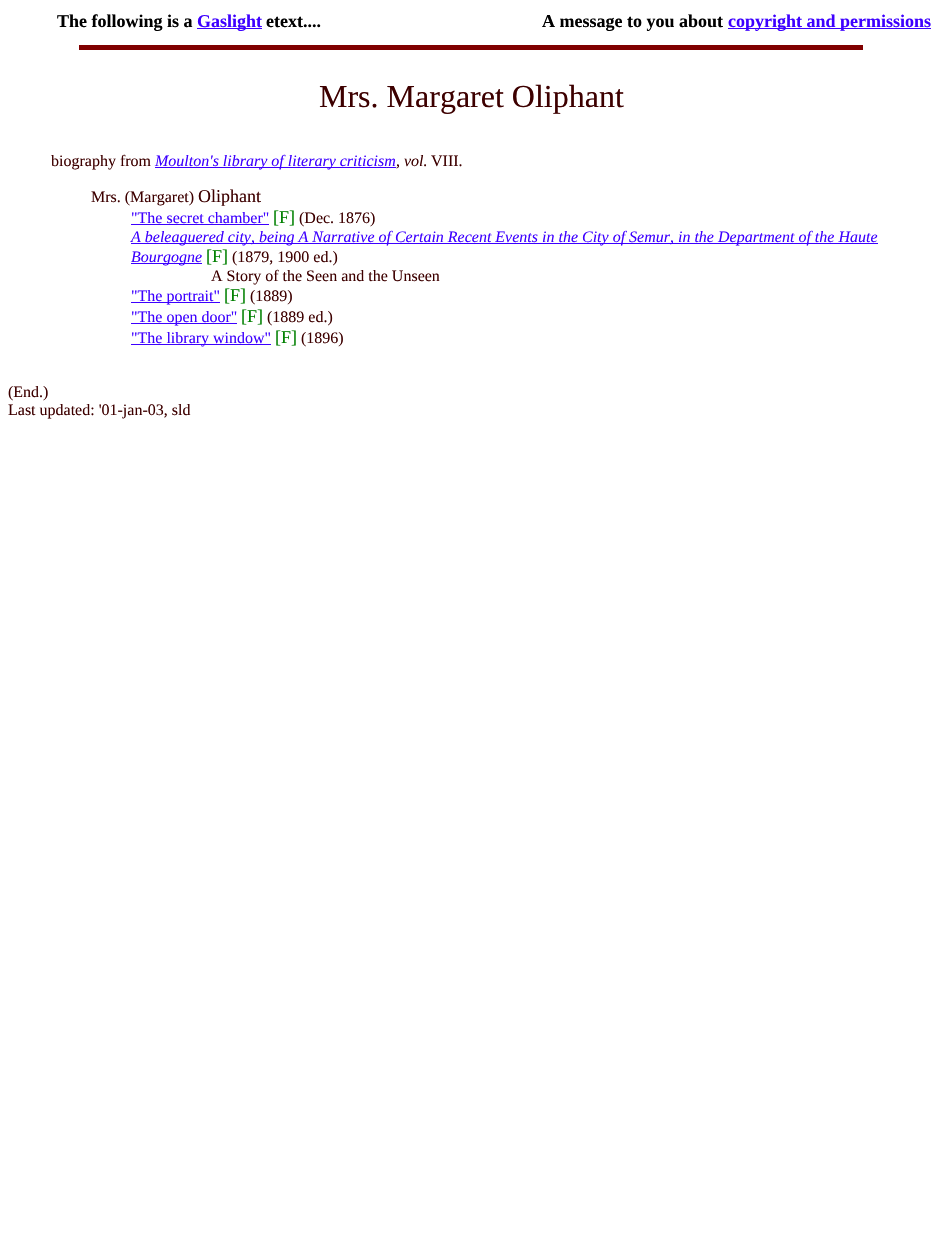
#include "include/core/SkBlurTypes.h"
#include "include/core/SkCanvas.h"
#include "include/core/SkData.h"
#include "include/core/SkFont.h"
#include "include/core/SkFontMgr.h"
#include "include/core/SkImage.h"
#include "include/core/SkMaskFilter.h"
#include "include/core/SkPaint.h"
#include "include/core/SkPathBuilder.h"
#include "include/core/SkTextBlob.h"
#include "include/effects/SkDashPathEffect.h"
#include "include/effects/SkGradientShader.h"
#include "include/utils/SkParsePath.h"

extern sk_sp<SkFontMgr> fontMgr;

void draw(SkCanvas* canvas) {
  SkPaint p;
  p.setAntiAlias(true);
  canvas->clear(SK_ColorWHITE);
  p.setColor(SkColorSetRGB(61, 0, 255));
  canvas->drawRect(SkRect::MakeLTRB(197, 28, 262, 29), p);
  canvas->drawRect(SkRect::MakeLTRB(728, 28, 931, 29), p);
  p.setColor(SkColorSetRGB(128, 0, 0));
  canvas->drawRect(SkRect::MakeLTRB(79, 45, 863, 50), p);
  p.setColor(SkColorSetRGB(61, 0, 255));
  canvas->drawRect(SkRect::MakeLTRB(155, 167, 396, 168), p);
  canvas->drawRect(SkRect::MakeLTRB(131, 224, 269, 225), p);
  canvas->drawRect(SkRect::MakeLTRB(131, 243, 878, 244), p);
  canvas->drawRect(SkRect::MakeLTRB(131, 263, 202, 264), p);
  canvas->drawRect(SkRect::MakeLTRB(131, 302, 220, 303), p);
  canvas->drawRect(SkRect::MakeLTRB(131, 323, 237, 324), p);
  canvas->drawRect(SkRect::MakeLTRB(131, 344, 271, 345), p);
  SkFont font1(fontMgr->matchFamilyStyle("Liberation Serif", SkFontStyle::Bold()), 18);
  font1.setSubpixel(true);
  p.setColor(SK_ColorBLACK);
  canvas->drawString("The following is a", 57, 27, font1, p);
  p.setColor(SkColorSetRGB(61, 0, 255));
  canvas->drawString("Gaslight", 197, 27, font1, p);
  p.setColor(SK_ColorBLACK);
  canvas->drawString("etext....", 266, 27, font1, p);
  canvas->drawString("A message to you about", 542, 27, font1, p);
  p.setColor(SkColorSetRGB(61, 0, 255));
  canvas->drawString("copyright and permissions", 728, 27, font1, p);
  SkFont font2(fontMgr->matchFamilyStyle("Liberation Serif", SkFontStyle::Normal()), 32);
  font2.setSubpixel(true);
  p.setColor(SkColorSetRGB(61, 0, 0));
  canvas->drawString("Mrs. Margaret Oliphant", 319, 107, font2, p);
  SkFont font3(fontMgr->matchFamilyStyle("Liberation Serif", SkFontStyle::Normal()), 16);
  font3.setSubpixel(true);
  canvas->drawString("biography from", 51, 166, font3, p);
  SkFont font4(fontMgr->matchFamilyStyle("Liberation Serif", SkFontStyle::Italic()), 16);
  font4.setSubpixel(true);
  p.setColor(SkColorSetRGB(61, 0, 255));
  canvas->drawString("Moulton's library of literary criticism", 155, 166, font4, p);
  p.setColor(SkColorSetRGB(61, 0, 0));
  canvas->drawString(", vol.", 396, 166, font4, p);
  canvas->drawString("VIII.", 431, 166, font3, p);
  canvas->drawString("Mrs. (Margaret)", 91, 202, font3, p);
  SkFont font5(fontMgr->matchFamilyStyle("Liberation Serif", SkFontStyle::Normal()), 18);
  font5.setSubpixel(true);
  canvas->drawString("Oliphant", 198, 202, font5, p);
  p.setColor(SkColorSetRGB(61, 0, 255));
  canvas->drawString("\"The secret chamber\"", 131, 223, font3, p);
  p.setColor(SkColorSetRGB(0, 128, 0));
  canvas->drawString("[F]", 273, 223, font5, p);
  p.setColor(SkColorSetRGB(61, 0, 0));
  canvas->drawString("(Dec. 1876)", 299, 223, font3, p);
  p.setColor(SkColorSetRGB(61, 0, 255));
  canvas->drawString("A beleaguered city, being A Narrative of Certain Recent Events in the City of Semur, in the Department of the Haute", 131, 242, font4, p);
  canvas->drawString("Bourgogne", 131, 262, font4, p);
  p.setColor(SkColorSetRGB(0, 128, 0));
  canvas->drawString("[F]", 206, 262, font5, p);
  p.setColor(SkColorSetRGB(61, 0, 0));
  canvas->drawString("(1879, 1900 ed.)", 232, 262, font3, p);
  canvas->drawString("A Story of the Seen and the Unseen", 211, 281, font3, p);
  p.setColor(SkColorSetRGB(61, 0, 255));
  canvas->drawString("\"The portrait\"", 131, 301, font3, p);
  p.setColor(SkColorSetRGB(0, 128, 0));
  canvas->drawString("[F]", 224, 301, font5, p);
  p.setColor(SkColorSetRGB(61, 0, 0));
  canvas->drawString("(1889)", 250, 301, font3, p);
  p.setColor(SkColorSetRGB(61, 0, 255));
  canvas->drawString("\"The open door\"", 131, 322, font3, p);
  p.setColor(SkColorSetRGB(0, 128, 0));
  canvas->drawString("[F]", 241, 322, font5, p);
  p.setColor(SkColorSetRGB(61, 0, 0));
  canvas->drawString("(1889 ed.)", 267, 322, font3, p);
  p.setColor(SkColorSetRGB(61, 0, 255));
  canvas->drawString("\"The library window\"", 131, 343, font3, p);
  p.setColor(SkColorSetRGB(0, 128, 0));
  canvas->drawString("[F]", 275, 343, font5, p);
  p.setColor(SkColorSetRGB(61, 0, 0));
  canvas->drawString("(1896)", 301, 343, font3, p);
  canvas->drawString("(End.)", 8, 397, font3, p);
  canvas->drawString("Last updated: '01-jan-03, sld", 8, 415, font3, p);
}
